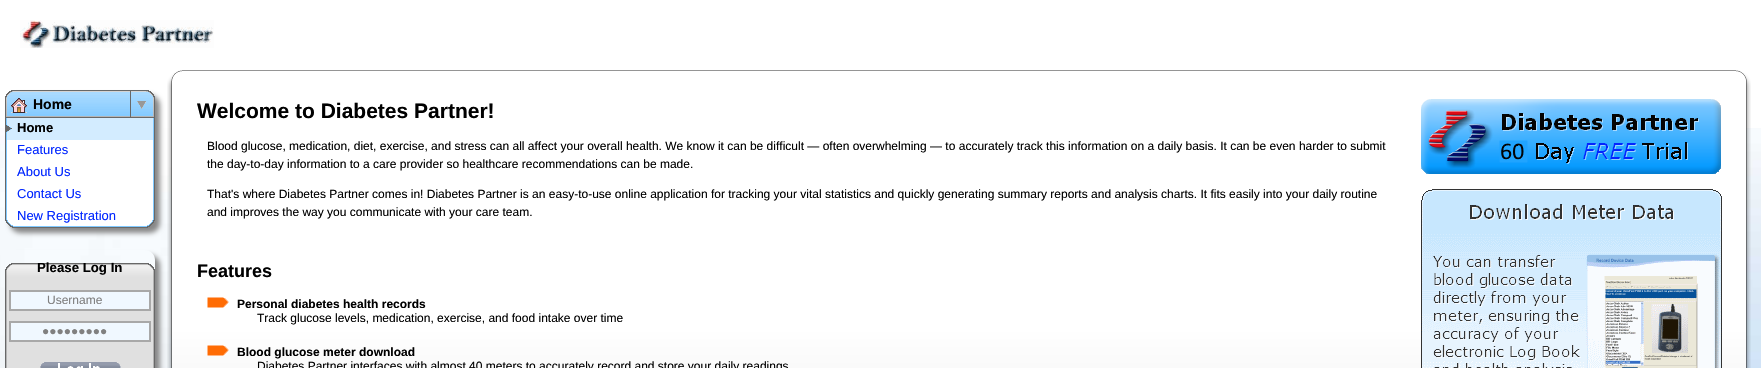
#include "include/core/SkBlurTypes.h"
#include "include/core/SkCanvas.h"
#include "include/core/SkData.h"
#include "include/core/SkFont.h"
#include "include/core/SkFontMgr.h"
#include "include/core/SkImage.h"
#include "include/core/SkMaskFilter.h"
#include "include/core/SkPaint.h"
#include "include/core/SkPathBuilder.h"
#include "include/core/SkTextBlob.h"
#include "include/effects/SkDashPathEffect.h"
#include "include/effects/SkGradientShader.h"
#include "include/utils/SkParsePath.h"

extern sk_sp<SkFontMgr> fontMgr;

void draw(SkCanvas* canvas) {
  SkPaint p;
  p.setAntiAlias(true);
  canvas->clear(SK_ColorWHITE);
  canvas->drawImageRect(SkImages::DeferredFromEncodedData(SkData::MakeFromFileName("images/1.png")), SkRect::MakeLTRB(0, 128, 1761, 368), SkSamplingOptions());
  canvas->drawImageRect(SkImages::DeferredFromEncodedData(SkData::MakeFromFileName("images/2.png")), SkRect::MakeLTRB(20, 20, 214, 48), SkSamplingOptions());
  canvas->save();
  canvas->clipPath(SkPathBuilder(SkPathFillType::kEvenOdd).moveTo(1, 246).lineTo(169, 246).lineTo(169, 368).lineTo(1, 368).close().moveTo(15, 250).lineTo(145, 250).cubicTo(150.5f, 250, 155, 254.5f, 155, 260).lineTo(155, 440).cubicTo(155, 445.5f, 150.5f, 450, 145, 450).lineTo(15, 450).cubicTo(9.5f, 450, 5, 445.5f, 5, 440).lineTo(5, 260).cubicTo(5, 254.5f, 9.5f, 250, 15, 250).close().detach(), true);
  p.setColor(SkColorSetRGB(136, 136, 136));
  p.setMaskFilter(SkMaskFilter::MakeBlur(kNormal_SkBlurStyle, 2.5f));
  canvas->drawRoundRect(SkRect::MakeLTRB(10, 255, 160, 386), 10, 10, p);
  p.setMaskFilter(nullptr);
  canvas->restore();
  canvas->drawImageRect(SkImages::DeferredFromEncodedData(SkData::MakeFromFileName("images/11.png")), SkRect::MakeLTRB(167, 70, 1736, 368), SkSamplingOptions());
  p.setMaskFilter(SkMaskFilter::MakeBlur(kNormal_SkBlurStyle, 2.5f));
  canvas->drawRoundRect(SkRect::MakeLTRB(10, 95, 160, 233), 10, 10, p);
  p.setMaskFilter(nullptr);
  canvas->drawImageRect(SkImages::DeferredFromEncodedData(SkData::MakeFromFileName("images/4.png")), SkRect::MakeLTRB(5, 90, 155, 118), SkSamplingOptions());
  canvas->drawImageRect(SkImages::DeferredFromEncodedData(SkData::MakeFromFileName("images/3.png")), SkRect::MakeLTRB(11, 98, 27, 113), SkSamplingOptions());
  canvas->drawImageRect(SkImages::DeferredFromEncodedData(SkData::MakeFromFileName("images/5.png")), SkRect::MakeLTRB(130, 91, 146, 117), SkSamplingOptions());
  canvas->drawImageRect(SkImages::DeferredFromEncodedData(SkData::MakeFromFileName("images/6.png")), SkRect::MakeLTRB(5, 118, 155, 140), SkSamplingOptions());
  canvas->drawImageRect(SkImages::DeferredFromEncodedData(SkData::MakeFromFileName("images/7.png")), SkRect::MakeLTRB(5, 140, 155, 162), SkSamplingOptions());
  canvas->drawImageRect(SkImages::DeferredFromEncodedData(SkData::MakeFromFileName("images/7.png")), SkRect::MakeLTRB(5, 162, 155, 184), SkSamplingOptions());
  canvas->drawImageRect(SkImages::DeferredFromEncodedData(SkData::MakeFromFileName("images/7.png")), SkRect::MakeLTRB(5, 184, 155, 206), SkSamplingOptions());
  canvas->drawImageRect(SkImages::DeferredFromEncodedData(SkData::MakeFromFileName("images/8.png")), SkRect::MakeLTRB(5, 206, 155, 228), SkSamplingOptions());
  canvas->drawImageRect(SkImages::DeferredFromEncodedData(SkData::MakeFromFileName("images/9.png")), SkRect::MakeLTRB(5, 263, 155, 368), SkSamplingOptions());
  p.setColor(SkColorSetRGB(240, 248, 255));
  canvas->drawRect(SkRect::MakeLTRB(10, 291, 150, 310), p);
  p.setStyle(SkPaint::kStroke_Style);
  p.setStrokeWidth(2);
  p.setColor(SkColorSetRGB(168, 168, 168));
  canvas->drawRect(SkRect::MakeLTRB(10, 291, 150, 310), p);
  p.setStyle(SkPaint::kFill_Style);
  p.setColor(SkColorSetRGB(240, 248, 255));
  canvas->drawRect(SkRect::MakeLTRB(10, 322, 150, 341), p);
  p.setStyle(SkPaint::kStroke_Style);
  p.setColor(SkColorSetRGB(168, 168, 168));
  canvas->drawRect(SkRect::MakeLTRB(10, 322, 150, 341), p);
  canvas->drawImageRect(SkImages::DeferredFromEncodedData(SkData::MakeFromFileName("images/10.png")), SkRect::MakeLTRB(40, 362, 121, 368), SkSamplingOptions());
  canvas->drawImageRect(SkImages::DeferredFromEncodedData(SkData::MakeFromFileName("images/12.png")), SkRect::MakeLTRB(207, 297, 229, 308), SkSamplingOptions());
  canvas->drawImageRect(SkImages::DeferredFromEncodedData(SkData::MakeFromFileName("images/13.png")), SkRect::MakeLTRB(207, 345, 229, 356), SkSamplingOptions());
  canvas->drawImageRect(SkImages::DeferredFromEncodedData(SkData::MakeFromFileName("images/14.png")), SkRect::MakeLTRB(1421, 99, 1721, 174), SkSamplingOptions());
  canvas->drawImageRect(SkImages::DeferredFromEncodedData(SkData::MakeFromFileName("images/15.png")), SkRect::MakeLTRB(1421, 189, 1722, 368), SkSamplingOptions());
  canvas->drawImageRect(SkImages::DeferredFromEncodedData(SkData::MakeFromFileName("images/16.png")), SkRect::MakeLTRB(1736, 70, 1751, 368), SkSamplingOptions());
  SkFont font1(fontMgr->matchFamilyStyle("Liberation Sans", SkFontStyle::Bold()), 14);
  font1.setSubpixel(true);
  p.setStyle(SkPaint::kFill_Style);
  p.setColor(SK_ColorBLACK);
  canvas->drawString("Home", 33, 109, font1, p);
  SkFont font2(fontMgr->matchFamilyStyle("Liberation Sans", SkFontStyle::Bold()), 13);
  font2.setSubpixel(true);
  canvas->drawString("Home", 17, 132, font2, p);
  SkFont font3(fontMgr->matchFamilyStyle("Liberation Sans", SkFontStyle::Normal()), 13);
  font3.setSubpixel(true);
  p.setColor(SkColorSetRGB(0, 38, 255));
  canvas->drawString("Features", 17, 154, font3, p);
  canvas->drawString("About Us", 17, 176, font3, p);
  canvas->drawString("Contact Us", 17, 198, font3, p);
  canvas->drawString("New Registration", 17, 220, font3, p);
  SkFont font4(fontMgr->matchFamilyStyle("Liberation Sans", SkFontStyle::Bold()), 13.25f);
  font4.setSubpixel(true);
  p.setColor(SK_ColorBLACK);
  canvas->drawString("Please Log In", 37, 272, font4, p);
  SkFont font5(fontMgr->matchFamilyStyle("Liberation Sans", SkFontStyle::Normal()), 12);
  font5.setSubpixel(true);
  p.setColor(SkColorSetRGB(128, 128, 128));
  canvas->drawString("Username", 47, 304, font5, p);
  canvas->drawString("●●●●●●●●●", 42, 335, font5, p);
  SkFont font6(fontMgr->matchFamilyStyle("Liberation Sans", SkFontStyle::Bold()), 21);
  font6.setSubpixel(true);
  p.setColor(SK_ColorBLACK);
  canvas->drawString("Welcome to Diabetes Partner!", 197, 118, font6, p);
  canvas->drawString("Blood glucose, medication, diet, exercise, and stress can all affect your overall health. We know it can be difficult — often overwhelming — to accurately track this information on a daily basis. It can be even harder to submit", 207, 150, font5, p);
  canvas->drawString("the day-to-day information to a care provider so healthcare recommendations can be made.", 207, 168, font5, p);
  canvas->drawString("That's where Diabetes Partner comes in! Diabetes Partner is an easy-to-use online application for tracking your vital statistics and quickly generating summary reports and analysis charts. It fits easily into your daily routine", 207, 198, font5, p);
  canvas->drawString("and improves the way you communicate with your care team.", 207, 216, font5, p);
  SkFont font7(fontMgr->matchFamilyStyle("Liberation Sans", SkFontStyle::Bold()), 18);
  font7.setSubpixel(true);
  canvas->drawString("Features", 197, 277, font7, p);
  SkFont font8(fontMgr->matchFamilyStyle("Liberation Sans", SkFontStyle::Bold()), 12);
  font8.setSubpixel(true);
  canvas->drawString("Personal diabetes health records", 237, 308, font8, p);
  canvas->drawString("Track glucose levels, medication, exercise, and food intake over time", 257, 322, font5, p);
  canvas->drawString("Blood glucose meter download", 237, 356, font8, p);
  canvas->drawString("Diabetes Partner interfaces with almost 40 meters to accurately record and store your daily readings", 257, 370, font5, p);
}
